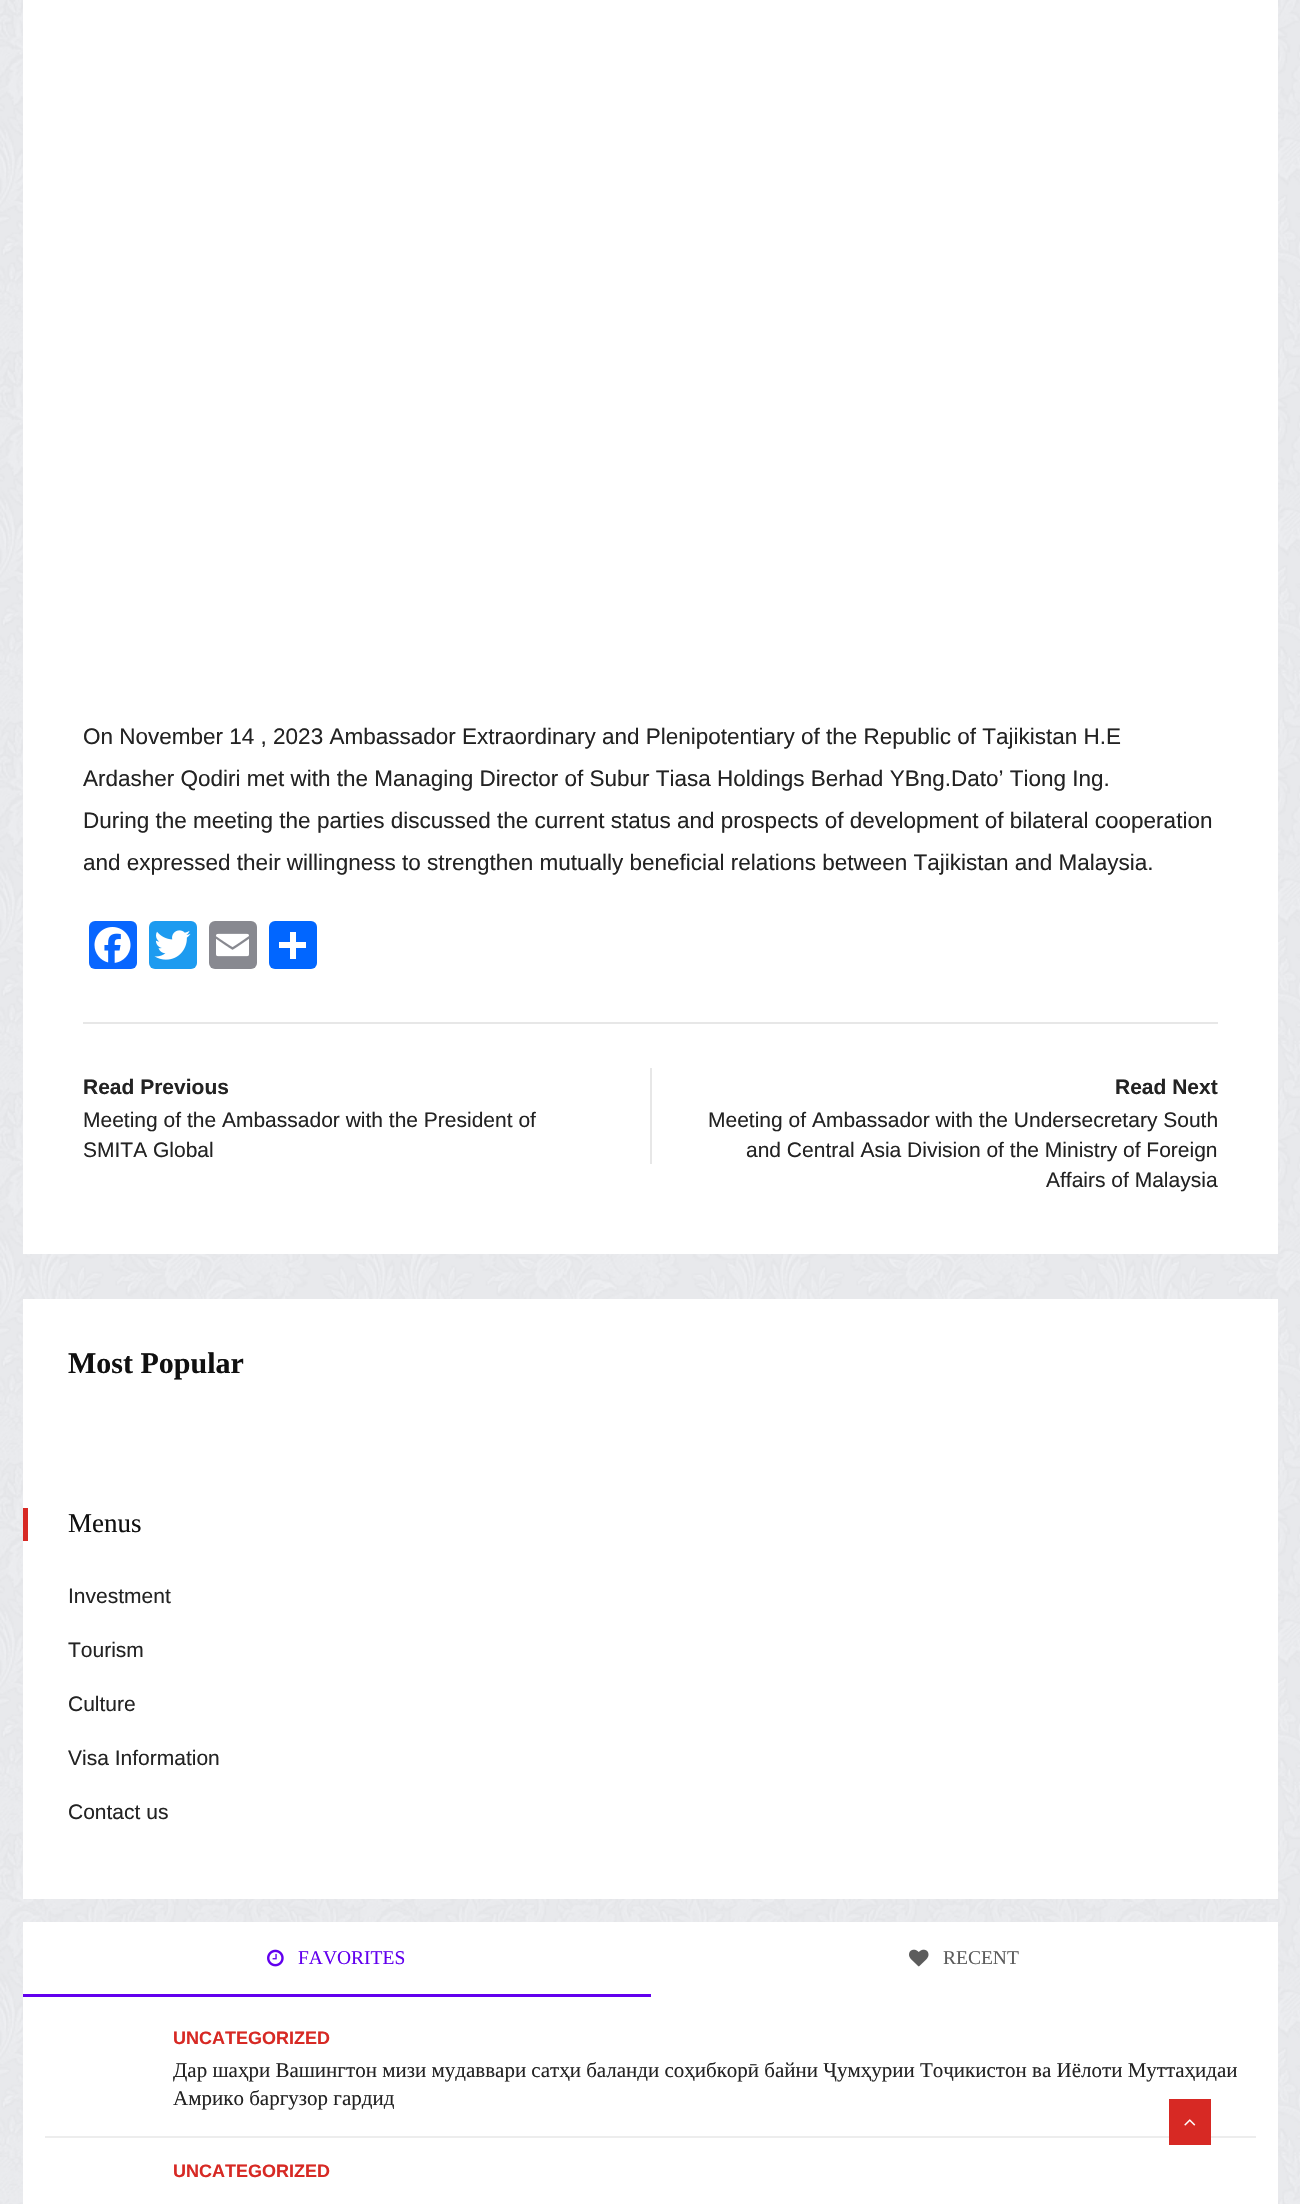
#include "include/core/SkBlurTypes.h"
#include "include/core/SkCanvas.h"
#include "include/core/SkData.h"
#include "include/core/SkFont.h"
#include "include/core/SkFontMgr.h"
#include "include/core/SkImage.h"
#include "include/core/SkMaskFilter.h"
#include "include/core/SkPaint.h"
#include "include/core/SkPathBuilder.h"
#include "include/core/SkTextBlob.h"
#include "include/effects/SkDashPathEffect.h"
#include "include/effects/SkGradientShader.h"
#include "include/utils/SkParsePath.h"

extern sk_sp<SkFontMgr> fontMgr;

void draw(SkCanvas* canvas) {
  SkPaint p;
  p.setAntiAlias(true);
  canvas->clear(SkColorSetRGB(240, 241, 244));
  canvas->drawImageRect(SkImages::DeferredFromEncodedData(SkData::MakeFromFileName("images/1.png")), SkRect::MakeLTRB(0, 0, 1300, 2204), SkSamplingOptions());
  p.setColor(SK_ColorWHITE);
  canvas->drawRect(SkRect::MakeLTRB(23, 0, 1278, 1254), p);
  p.setColor(SkColorSetRGB(8, 102, 255));
  canvas->drawRoundRect(SkRect::MakeLTRB(89, 921, 137, 969), 6, 6, p);
  canvas->drawImageRect(SkImages::DeferredFromEncodedData(SkData::MakeFromFileName("images/2.png")), SkRect::MakeLTRB(94, 927, 131, 963), SkSamplingOptions());
  p.setColor(SkColorSetRGB(29, 155, 240));
  canvas->drawRoundRect(SkRect::MakeLTRB(149, 921, 197, 969), 6, 6, p);
  canvas->drawImageRect(SkImages::DeferredFromEncodedData(SkData::MakeFromFileName("images/3.png")), SkRect::MakeLTRB(154, 930, 191, 960), SkSamplingOptions());
  p.setColor(SkColorSetRGB(136, 137, 144));
  canvas->drawRoundRect(SkRect::MakeLTRB(209, 921, 257, 969), 6, 6, p);
  canvas->drawImageRect(SkImages::DeferredFromEncodedData(SkData::MakeFromFileName("images/4.png")), SkRect::MakeLTRB(216, 933, 249, 957), SkSamplingOptions());
  p.setColor(SkColorSetRGB(1, 102, 255));
  canvas->drawRoundRect(SkRect::MakeLTRB(269, 921, 317, 969), 6, 6, p);
  p.setColor(SK_ColorWHITE);
  canvas->drawRect(SkRect::MakeLTRB(290, 932, 296, 959), p);
  canvas->drawRect(SkRect::MakeLTRB(279, 942, 306, 948), p);
  p.setColor(SkColorSetRGB(231, 231, 231));
  canvas->drawRect(SkRect::MakeLTRB(83, 1022, 1218, 1024), p);
  canvas->drawRect(SkRect::MakeLTRB(650, 1068, 652, 1164), p);
  p.setColor(SK_ColorWHITE);
  canvas->drawRect(SkRect::MakeLTRB(23, 1299, 1278, 1899), p);
  p.setColor(SkColorSetRGB(215, 41, 36));
  canvas->drawRect(SkRect::MakeLTRB(23, 1508, 28, 1541), p);
  p.setColor(SK_ColorWHITE);
  canvas->drawRect(SkRect::MakeLTRB(23, 1922, 1278, 2204), p);
  canvas->drawImageRect(SkImages::DeferredFromEncodedData(SkData::MakeFromFileName("images/5.png")), SkRect::MakeLTRB(267, 1949, 284, 1967), SkSamplingOptions());
  p.setColor(SkColorSetRGB(98, 0, 238));
  canvas->drawRect(SkRect::MakeLTRB(23, 1994, 651, 1997), p);
  canvas->drawImageRect(SkImages::DeferredFromEncodedData(SkData::MakeFromFileName("images/6.png")), SkRect::MakeLTRB(909, 1949, 929, 1967), SkSamplingOptions());
  p.setColor(SkColorSetRGB(237, 237, 237));
  canvas->drawRect(SkRect::MakeLTRB(45, 2136, 1256, 2138), p);
  p.setColor(SkColorSetRGB(215, 41, 36));
  canvas->drawRect(SkRect::MakeLTRB(1169, 2099, 1211, 2145), p);
  canvas->drawImageRect(SkImages::DeferredFromEncodedData(SkData::MakeFromFileName("images/7.png")), SkRect::MakeLTRB(1184, 2119, 1196, 2126), SkSamplingOptions());
  SkFont font1(fontMgr->matchFamilyStyle("Arimo", SkFontStyle::Normal()), 22.5f);
  font1.setSubpixel(true);
  p.setColor(SkColorSetRGB(35, 35, 35));
  canvas->drawString("On November 14 , 2023 Ambassador Extraordinary and Plenipotentiary of the Republic of Tajikistan H.E", 83, 744, font1, p);
  canvas->drawString("Ardasher Qodiri met with the Managing Director of Subur Tiasa Holdings Berhad YBng.Dato’ Tiong Ing.", 83, 786, font1, p);
  canvas->drawString("During the meeting the parties discussed the current status and prospects of development of bilateral cooperation", 83, 828, font1, p);
  canvas->drawString("and expressed their willingness to strengthen mutually beneficial relations between Tajikistan and Malaysia.", 83, 870, font1, p);
  SkFont font2(fontMgr->matchFamilyStyle("Arimo", SkFontStyle::Bold()), 21);
  font2.setSubpixel(true);
  canvas->drawString("Read Previous", 83, 1094, font2, p);
  SkFont font3(fontMgr->matchFamilyStyle("Arimo", SkFontStyle::Normal()), 21);
  font3.setSubpixel(true);
  canvas->drawString("Meeting of the Ambassador with the President of", 83, 1127, font3, p);
  canvas->drawString("SMITA Global", 83, 1157, font3, p);
  canvas->drawString("Read Next", 1115, 1094, font2, p);
  canvas->drawString("Meeting of Ambassador with the Undersecretary South", 708, 1127, font3, p);
  canvas->drawString("and Central Asia Division of the Ministry of Foreign", 746, 1157, font3, p);
  canvas->drawString("Affairs of Malaysia", 1046, 1187, font3, p);
  SkFont font4(fontMgr->matchFamilyStyle("Liberation Serif", SkFontStyle::Bold()), 30);
  font4.setSubpixel(true);
  p.setColor(SkColorSetRGB(16, 16, 16));
  canvas->drawString("Most Popular", 68, 1373, font4, p);
  SkFont font5(fontMgr->matchFamilyStyle("Liberation Serif", SkFontStyle::Normal()), 27);
  font5.setSubpixel(true);
  canvas->drawString("Menus", 68, 1532, font5, p);
  p.setColor(SkColorSetRGB(35, 35, 35));
  canvas->drawString("Investment", 68, 1603, font3, p);
  canvas->drawString("Tourism", 68, 1657, font3, p);
  canvas->drawString("Culture", 68, 1711, font3, p);
  canvas->drawString("Visa Information", 68, 1765, font3, p);
  canvas->drawString("Contact us", 68, 1819, font3, p);
  SkFont font6(fontMgr->matchFamilyStyle("Liberation Serif", SkFontStyle::Normal()), 19.5f);
  font6.setSubpixel(true);
  p.setColor(SkColorSetRGB(98, 0, 238));
  canvas->drawString("FAVORITES", 298, 1964, font6, p);
  p.setColor(SkColorSetRGB(92, 92, 92));
  canvas->drawString("RECENT", 943, 1964, font6, p);
  SkFont font7(fontMgr->matchFamilyStyle("Arimo", SkFontStyle::Bold()), 18);
  font7.setSubpixel(true);
  p.setColor(SkColorSetRGB(215, 41, 36));
  canvas->drawString("UNCATEGORIZED", 173, 2044, font7, p);
  SkFont font8(fontMgr->matchFamilyStyle("Liberation Serif", SkFontStyle::Normal()), 21);
  font8.setSubpixel(true);
  p.setColor(SkColorSetRGB(35, 35, 35));
  canvas->drawString("Дар шаҳри Вашингтон мизи мудаввари сатҳи баланди соҳибкорӣ байни Ҷумҳурии Тоҷикистон ва Иёлоти Муттаҳидаи", 173, 2077, font8, p);
  canvas->drawString("Амрико баргузор гардид", 173, 2105, font8, p);
  p.setColor(SkColorSetRGB(215, 41, 36));
  canvas->drawString("UNCATEGORIZED", 173, 2177, font7, p);
}
